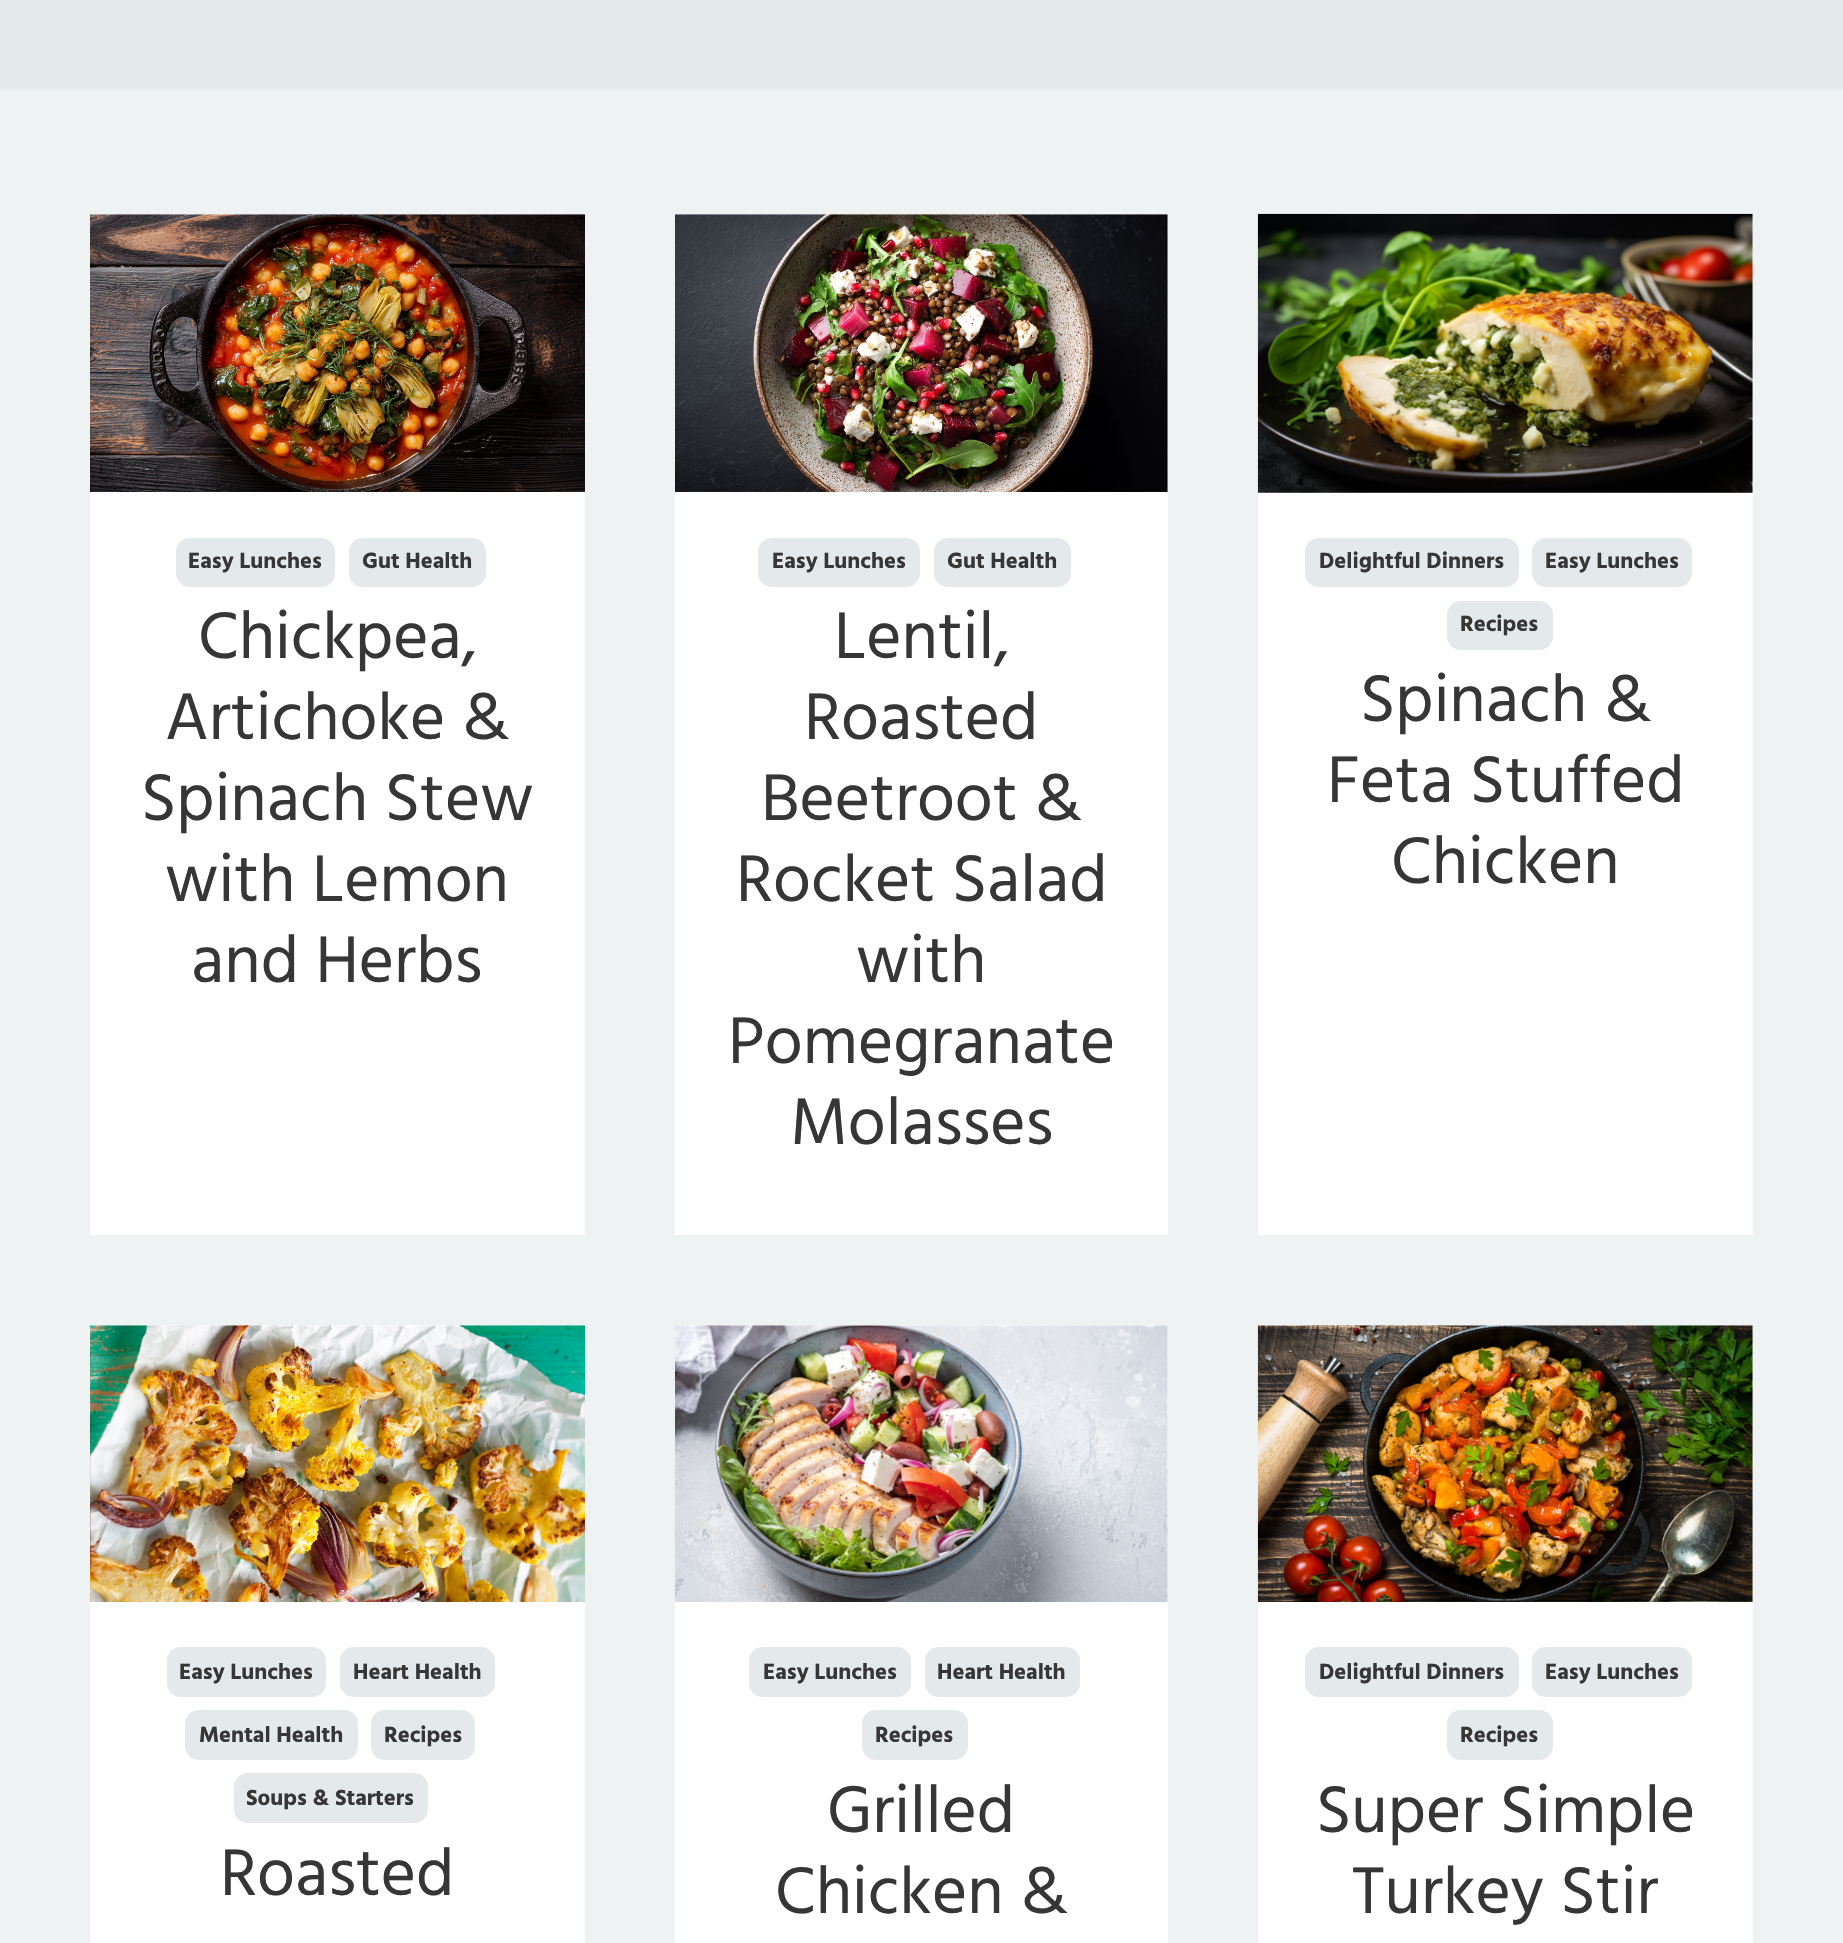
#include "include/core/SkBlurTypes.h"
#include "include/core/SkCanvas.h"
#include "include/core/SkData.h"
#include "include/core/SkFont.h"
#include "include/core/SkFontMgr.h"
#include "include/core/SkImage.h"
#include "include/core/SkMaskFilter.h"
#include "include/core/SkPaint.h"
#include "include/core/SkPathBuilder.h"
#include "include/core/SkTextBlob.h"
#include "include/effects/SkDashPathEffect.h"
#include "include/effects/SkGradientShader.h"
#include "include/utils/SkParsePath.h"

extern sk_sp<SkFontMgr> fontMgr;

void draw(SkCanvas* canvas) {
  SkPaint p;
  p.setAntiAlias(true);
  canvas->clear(SkColorSetRGB(228, 233, 235));
  p.setColor(SkColorSetRGB(239, 242, 243));
  canvas->drawRect(SkRect::MakeLTRB(0, 90, 1843, 1943), p);
  p.setColor(SK_ColorWHITE);
  canvas->drawRect(SkRect::MakeLTRB(90, 492, 585, 1235), p);
  canvas->drawImageRect(SkImages::DeferredFromEncodedData(SkData::MakeFromFileName("images/1.png")), SkRect::MakeLTRB(90, 214, 585, 493), SkSamplingOptions());
  p.setColor(SkColorSetRGB(228, 233, 235));
  canvas->drawRoundRect(SkRect::MakeLTRB(176, 538, 335, 587), 14, 14, p);
  canvas->drawRoundRect(SkRect::MakeLTRB(349, 538, 486, 587), 14, 14, p);
  p.setColor(SK_ColorWHITE);
  canvas->drawRect(SkRect::MakeLTRB(675, 214, 1168, 1235), p);
  canvas->drawImageRect(SkImages::DeferredFromEncodedData(SkData::MakeFromFileName("images/2.png")), SkRect::MakeLTRB(675, 214, 1168, 493), SkSamplingOptions());
  p.setColor(SkColorSetRGB(228, 233, 235));
  canvas->drawRoundRect(SkRect::MakeLTRB(758, 538, 920, 587), 14, 14, p);
  canvas->drawRoundRect(SkRect::MakeLTRB(934, 538, 1071, 587), 14, 14, p);
  p.setColor(SK_ColorWHITE);
  canvas->drawRect(SkRect::MakeLTRB(1258, 214, 1753, 1235), p);
  canvas->drawImageRect(SkImages::DeferredFromEncodedData(SkData::MakeFromFileName("images/3.png")), SkRect::MakeLTRB(1257, 213, 1753, 493), SkSamplingOptions());
  p.setColor(SkColorSetRGB(228, 233, 235));
  canvas->drawRoundRect(SkRect::MakeLTRB(1305, 538, 1519, 587), 14, 14, p);
  canvas->drawRoundRect(SkRect::MakeLTRB(1532, 538, 1692, 587), 14, 14, p);
  canvas->drawRoundRect(SkRect::MakeLTRB(1447, 601, 1553, 650), 14, 14, p);
  p.setColor(SK_ColorWHITE);
  canvas->drawRect(SkRect::MakeLTRB(90, 1325, 585, 1943), p);
  canvas->drawImageRect(SkImages::DeferredFromEncodedData(SkData::MakeFromFileName("images/4.png")), SkRect::MakeLTRB(90, 1325, 585, 1602), SkSamplingOptions());
  p.setColor(SkColorSetRGB(228, 233, 235));
  canvas->drawRoundRect(SkRect::MakeLTRB(167, 1647, 326, 1697), 14, 14, p);
  canvas->drawRoundRect(SkRect::MakeLTRB(340, 1647, 495, 1697), 14, 14, p);
  canvas->drawRoundRect(SkRect::MakeLTRB(185, 1710, 358, 1760), 14, 14, p);
  canvas->drawRoundRect(SkRect::MakeLTRB(371, 1710, 475, 1760), 14, 14, p);
  canvas->drawRoundRect(SkRect::MakeLTRB(234, 1773, 428, 1823), 14, 14, p);
  p.setColor(SK_ColorWHITE);
  canvas->drawRect(SkRect::MakeLTRB(675, 1325, 1168, 1943), p);
  canvas->drawImageRect(SkImages::DeferredFromEncodedData(SkData::MakeFromFileName("images/5.png")), SkRect::MakeLTRB(675, 1325, 1168, 1602), SkSamplingOptions());
  p.setColor(SkColorSetRGB(228, 233, 235));
  canvas->drawRoundRect(SkRect::MakeLTRB(749, 1647, 911, 1697), 14, 14, p);
  canvas->drawRoundRect(SkRect::MakeLTRB(925, 1647, 1080, 1697), 14, 14, p);
  canvas->drawRoundRect(SkRect::MakeLTRB(862, 1710, 968, 1760), 14, 14, p);
  p.setColor(SK_ColorWHITE);
  canvas->drawRect(SkRect::MakeLTRB(1258, 1325, 1753, 1943), p);
  canvas->drawImageRect(SkImages::DeferredFromEncodedData(SkData::MakeFromFileName("images/6.png")), SkRect::MakeLTRB(1257, 1325, 1753, 1602), SkSamplingOptions());
  p.setColor(SkColorSetRGB(228, 233, 235));
  canvas->drawRoundRect(SkRect::MakeLTRB(1305, 1647, 1519, 1697), 14, 14, p);
  canvas->drawRoundRect(SkRect::MakeLTRB(1532, 1647, 1692, 1697), 14, 14, p);
  canvas->drawRoundRect(SkRect::MakeLTRB(1447, 1710, 1553, 1760), 14, 14, p);
  SkFont font1(fontMgr->matchFamilyStyle("Hind", SkFontStyle::Bold()), 22.5f);
  font1.setSubpixel(true);
  p.setColor(SkColorSetRGB(54, 54, 54));
  canvas->drawString("Easy Lunches", 188, 568, font1, p);
  canvas->drawString("Gut Health", 362, 568, font1, p);
  SkFont font2(fontMgr->matchFamilyStyle("Hind", SkFontStyle::Normal()), 67.5f);
  font2.setSubpixel(true);
  canvas->drawString("Chickpea,", 198, 658, font2, p);
  canvas->drawString("Artichoke &", 165, 739, font2, p);
  canvas->drawString("Spinach Stew", 141, 820, font2, p);
  canvas->drawString("with Lemon", 165, 901, font2, p);
  canvas->drawString("and Herbs", 191, 982, font2, p);
  canvas->drawString("Easy Lunches", 772, 568, font1, p);
  canvas->drawString("Gut Health", 947, 568, font1, p);
  canvas->drawString("Lentil,", 834, 658, font2, p);
  canvas->drawString("Roasted", 804, 739, font2, p);
  canvas->drawString("Beetroot &", 761, 820, font2, p);
  canvas->drawString("Rocket Salad", 736, 901, font2, p);
  canvas->drawString("with", 856, 982, font2, p);
  canvas->drawString("Pomegranate", 728, 1063, font2, p);
  canvas->drawString("Molasses", 790, 1144, font2, p);
  canvas->drawString("Delightful Dinners", 1319, 568, font1, p);
  canvas->drawString("Easy Lunches", 1545, 568, font1, p);
  canvas->drawString("Recipes", 1460, 631, font1, p);
  canvas->drawString("Spinach &", 1360, 721, font2, p);
  canvas->drawString("Feta Stuffed", 1327, 802, font2, p);
  canvas->drawString("Chicken", 1391, 883, font2, p);
  canvas->drawString("Easy Lunches", 179, 1679, font1, p);
  canvas->drawString("Heart Health", 353, 1679, font1, p);
  canvas->drawString("Mental Health", 199, 1742, font1, p);
  canvas->drawString("Recipes", 384, 1742, font1, p);
  canvas->drawString("Soups & Starters", 246, 1805, font1, p);
  canvas->drawString("Roasted", 220, 1895, font2, p);
  canvas->drawString("Easy Lunches", 763, 1679, font1, p);
  canvas->drawString("Heart Health", 937, 1679, font1, p);
  canvas->drawString("Recipes", 875, 1742, font1, p);
  canvas->drawString("Grilled", 827, 1832, font2, p);
  canvas->drawString("Chicken &", 775, 1913, font2, p);
  canvas->drawString("Delightful Dinners", 1319, 1679, font1, p);
  canvas->drawString("Easy Lunches", 1545, 1679, font1, p);
  canvas->drawString("Recipes", 1460, 1742, font1, p);
  canvas->drawString("Super Simple", 1316, 1832, font2, p);
  canvas->drawString("Turkey Stir", 1352, 1913, font2, p);
}
